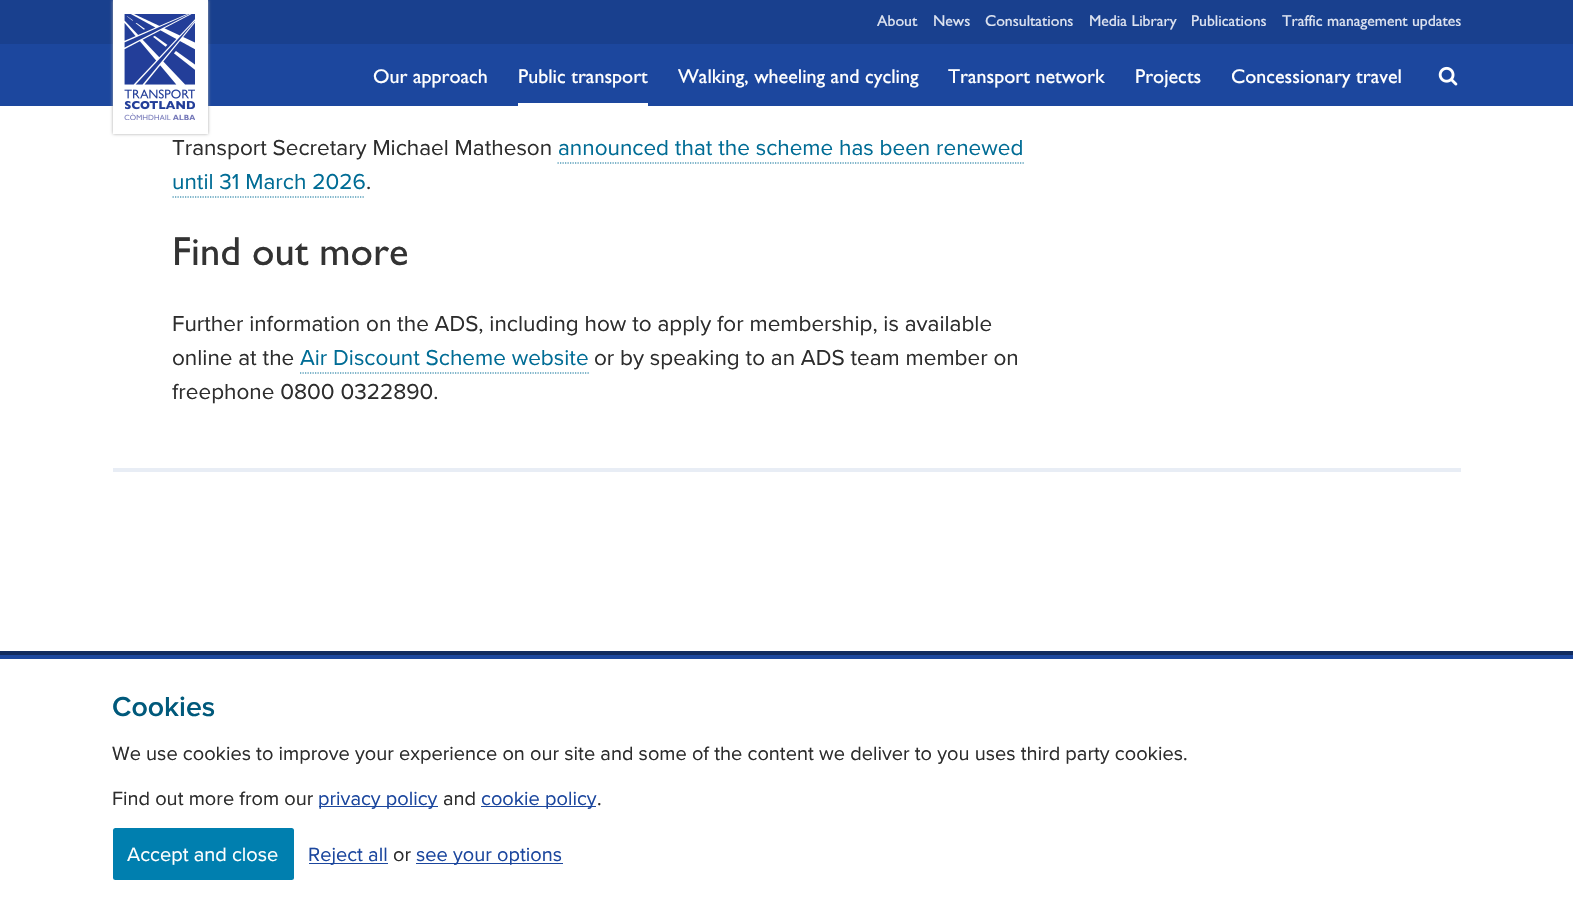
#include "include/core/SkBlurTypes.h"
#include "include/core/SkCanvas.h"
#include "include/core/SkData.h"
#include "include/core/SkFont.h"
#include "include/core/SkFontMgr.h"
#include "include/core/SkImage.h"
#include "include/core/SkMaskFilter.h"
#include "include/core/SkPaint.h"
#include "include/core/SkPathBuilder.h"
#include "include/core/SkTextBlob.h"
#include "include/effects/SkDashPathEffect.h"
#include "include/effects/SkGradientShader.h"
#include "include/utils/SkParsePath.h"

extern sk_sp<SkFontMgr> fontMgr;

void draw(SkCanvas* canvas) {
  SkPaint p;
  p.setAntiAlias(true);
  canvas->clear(SK_ColorWHITE);
  p.setColor(SkColorSetRGB(28, 71, 158));
  canvas->drawRect(SkRect::MakeLTRB(0, 44, 1573, 106), p);
  p.setColor(SkColorSetRGB(25, 64, 142));
  canvas->drawRect(SkRect::MakeLTRB(0, 0, 1573, 44), p);
  p.setColor(SkColorSetRGB(170, 170, 170));
  p.setMaskFilter(SkMaskFilter::MakeBlur(kNormal_SkBlurStyle, 1.5f));
  canvas->drawRect(SkRect::MakeLTRB(113, 0, 208, 134), p);
  p.setMaskFilter(nullptr);
  p.setColor(SK_ColorWHITE);
  canvas->drawRect(SkRect::MakeLTRB(113, 0, 208, 134), p);
  canvas->drawImageRect(SkImages::DeferredFromEncodedData(SkData::MakeFromFileName("images/1.png")), SkRect::MakeLTRB(124, 14, 195, 120), SkSamplingOptions());
  canvas->drawRect(SkRect::MakeLTRB(518, 103, 648, 106), p);
  canvas->drawImageRect(SkImages::DeferredFromEncodedData(SkData::MakeFromFileName("images/2.png")), SkRect::MakeLTRB(1438, 66, 1458, 86), SkSamplingOptions());
  p.setStyle(SkPaint::kStroke_Style);
  p.setStrokeWidth(1.2f);
  p.setColor(SkColorSetRGB(0, 108, 149));
  p.setPathEffect(SkDashPathEffect::Make({{1.25f, 1.25f}}, 0));
  canvas->drawPath(SkPathBuilder().moveTo(557.5f, 163).lineTo(1024, 163).detach(), p);
  p.setPathEffect(nullptr);
  p.setPathEffect(SkDashPathEffect::Make({{1.25f, 1.25f}}, 0));
  canvas->drawPath(SkPathBuilder().moveTo(172.5f, 197).lineTo(365, 197).detach(), p);
  p.setPathEffect(nullptr);
  p.setPathEffect(SkDashPathEffect::Make({{1.25f, 1.25f}}, 0));
  canvas->drawPath(SkPathBuilder().moveTo(300, 373).lineTo(589, 373).detach(), p);
  p.setPathEffect(nullptr);
  p.setStyle(SkPaint::kFill_Style);
  p.setColor(SkColorSetRGB(232, 237, 245));
  canvas->drawRect(SkRect::MakeLTRB(113, 468, 1461, 472), p);
  p.setColor(SkColorSetRGB(17, 43, 95));
  canvas->drawRect(SkRect::MakeLTRB(0, 651, 1573, 655), p);
  p.setColor(SkColorSetRGB(28, 71, 158));
  canvas->drawRect(SkRect::MakeLTRB(0, 655, 1573, 659), p);
  canvas->drawRect(SkRect::MakeLTRB(319, 806, 438, 807), p);
  canvas->drawRect(SkRect::MakeLTRB(481, 806, 596, 807), p);
  p.setColor(SkColorSetRGB(0, 127, 175));
  canvas->drawRoundRect(SkRect::MakeLTRB(113, 828, 294, 880), 2.5f, 2.5f, p);
  p.setColor(SkColorSetRGB(28, 71, 158));
  canvas->drawRect(SkRect::MakeLTRB(309, 863, 388, 864), p);
  canvas->drawRect(SkRect::MakeLTRB(416, 863, 563, 864), p);
  SkFont font1(fontMgr->matchFamilyStyle("Gill Sans", SkFontStyle(500, SkFontStyle::kNormal_Width, SkFontStyle::kUpright_Slant)), 15.75f);
  font1.setSubpixel(true);
  p.setColor(SkColorSetRGB(221, 227, 240));
  canvas->drawString("About", 877, 26, font1, p);
  canvas->drawString("News", 933, 26, font1, p);
  canvas->drawString("Consultations", 985, 26, font1, p);
  canvas->drawString("Media Library", 1089, 26, font1, p);
  canvas->drawString("Publications", 1191, 26, font1, p);
  canvas->drawString("Traffic management updates", 1282, 26, font1, p);
  SkFont font2(fontMgr->matchFamilyStyle("Gill Sans", SkFontStyle(500, SkFontStyle::kNormal_Width, SkFontStyle::kUpright_Slant)), 20);
  font2.setSubpixel(true);
  p.setColor(SK_ColorWHITE);
  canvas->drawString("Our approach", 373, 83, font2, p);
  canvas->drawString("Public transport", 518, 83, font2, p);
  canvas->drawString("Walking, wheeling and cycling", 678, 83, font2, p);
  canvas->drawString("Transport network", 948, 83, font2, p);
  canvas->drawString("Projects", 1135, 83, font2, p);
  canvas->drawString("Concessionary travel", 1231, 83, font2, p);
  SkFont font3(fontMgr->matchFamilyStyle("Proxima Nova", SkFontStyle::Normal()), 22.5f);
  font3.setSubpixel(true);
  p.setColor(SkColorSetRGB(45, 45, 45));
  canvas->drawString("Transport Secretary Michael Matheson", 172, 155, font3, p);
  p.setColor(SkColorSetRGB(0, 108, 149));
  canvas->drawString("announced that the scheme has been renewed", 558, 155, font3, p);
  canvas->drawString("until 31 March 2026", 172, 189, font3, p);
  p.setColor(SkColorSetRGB(45, 45, 45));
  canvas->drawString(".", 366, 189, font3, p);
  SkFont font4(fontMgr->matchFamilyStyle("Gill Sans", SkFontStyle(500, SkFontStyle::kNormal_Width, SkFontStyle::kUpright_Slant)), 40.5f);
  font4.setSubpixel(true);
  p.setColor(SkColorSetRGB(51, 51, 51));
  canvas->drawString("Find out more", 172, 265, font4, p);
  p.setColor(SkColorSetRGB(45, 45, 45));
  canvas->drawString("Further information on the ADS, including how to apply for membership, is available", 172, 331, font3, p);
  canvas->drawString("online at the", 172, 365, font3, p);
  p.setColor(SkColorSetRGB(0, 108, 149));
  canvas->drawString("Air Discount Scheme website", 300, 365, font3, p);
  p.setColor(SkColorSetRGB(45, 45, 45));
  canvas->drawString("or by speaking to an ADS team member on", 594, 365, font3, p);
  canvas->drawString("freephone 0800 0322890.", 172, 399, font3, p);
  SkFont font5(fontMgr->matchFamilyStyle("Proxima Nova", SkFontStyle(600, SkFontStyle::kNormal_Width, SkFontStyle::kUpright_Slant)), 28.5f);
  font5.setSubpixel(true);
  p.setColor(SkColorSetRGB(0, 89, 123));
  canvas->drawString("Cookies", 112, 716, font5, p);
  SkFont font6(fontMgr->matchFamilyStyle("Proxima Nova", SkFontStyle::Normal()), 20);
  font6.setSubpixel(true);
  p.setColor(SkColorSetRGB(45, 45, 45));
  canvas->drawString("We use cookies to improve your experience on our site and some of the content we deliver to you uses third party cookies.", 112, 760, font6, p);
  canvas->drawString("Find out more from our", 112, 805, font6, p);
  p.setColor(SkColorSetRGB(28, 71, 158));
  canvas->drawString("privacy policy", 318, 805, font6, p);
  p.setColor(SkColorSetRGB(45, 45, 45));
  canvas->drawString("and", 443, 805, font6, p);
  p.setColor(SkColorSetRGB(28, 71, 158));
  canvas->drawString("cookie policy", 481, 805, font6, p);
  p.setColor(SkColorSetRGB(45, 45, 45));
  canvas->drawString(".", 597, 805, font6, p);
  p.setColor(SK_ColorWHITE);
  canvas->drawString("Accept and close", 127, 861, font6, p);
  p.setColor(SkColorSetRGB(28, 71, 158));
  canvas->drawString("Reject all", 308, 861, font6, p);
  p.setColor(SkColorSetRGB(45, 45, 45));
  canvas->drawString("or", 393, 861, font6, p);
  p.setColor(SkColorSetRGB(28, 71, 158));
  canvas->drawString("see your options", 416, 861, font6, p);
}
